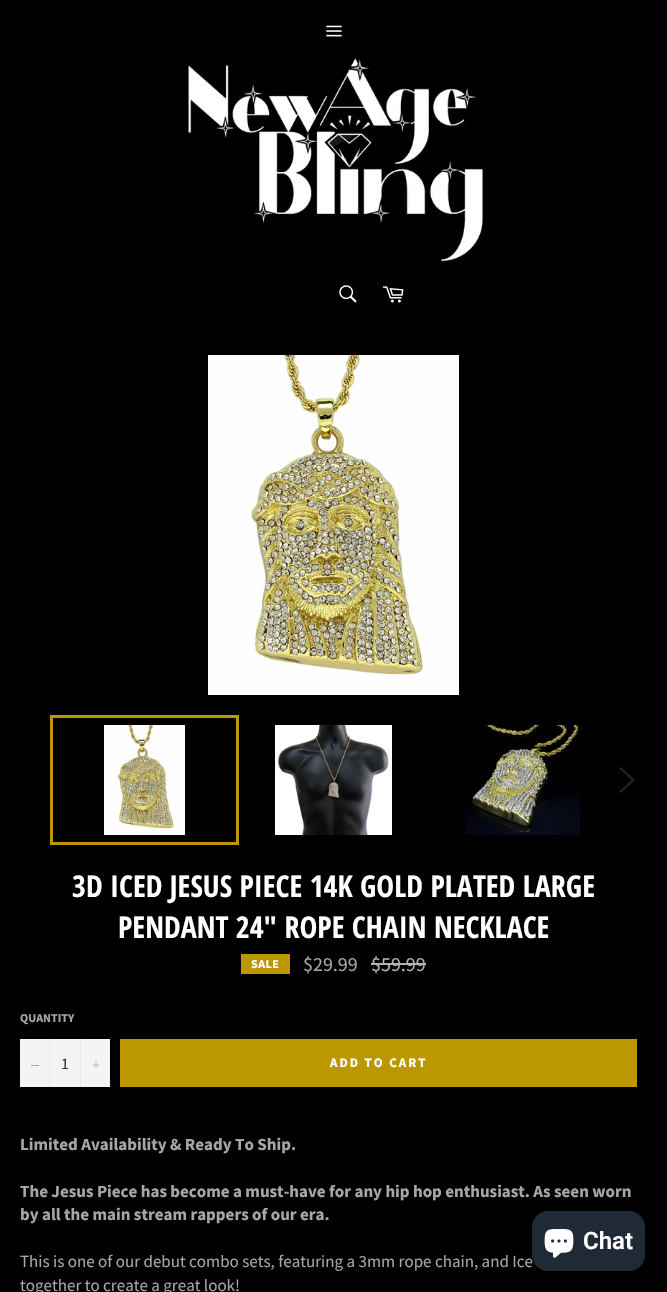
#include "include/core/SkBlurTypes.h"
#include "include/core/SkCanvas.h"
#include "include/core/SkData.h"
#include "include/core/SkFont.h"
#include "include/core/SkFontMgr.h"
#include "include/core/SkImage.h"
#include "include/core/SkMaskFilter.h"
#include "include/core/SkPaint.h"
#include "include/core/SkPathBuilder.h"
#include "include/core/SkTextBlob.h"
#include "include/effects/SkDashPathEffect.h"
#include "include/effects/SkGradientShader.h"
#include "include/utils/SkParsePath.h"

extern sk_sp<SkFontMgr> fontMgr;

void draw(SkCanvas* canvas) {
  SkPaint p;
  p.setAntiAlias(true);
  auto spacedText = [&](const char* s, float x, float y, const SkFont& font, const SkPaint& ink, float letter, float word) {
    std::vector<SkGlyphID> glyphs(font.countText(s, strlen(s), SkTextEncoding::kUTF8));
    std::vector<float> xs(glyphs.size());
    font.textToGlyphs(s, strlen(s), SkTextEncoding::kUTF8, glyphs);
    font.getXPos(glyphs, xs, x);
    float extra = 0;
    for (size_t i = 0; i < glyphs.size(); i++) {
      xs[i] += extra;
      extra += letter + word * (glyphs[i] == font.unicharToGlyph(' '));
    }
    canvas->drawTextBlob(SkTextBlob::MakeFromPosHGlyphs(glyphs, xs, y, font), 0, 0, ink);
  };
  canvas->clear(SK_ColorBLACK);
  canvas->drawImageRect(SkImages::DeferredFromEncodedData(SkData::MakeFromFileName("images/1.png")), SkRect::MakeLTRB(326, 25, 342, 37), SkSamplingOptions());
  canvas->drawImageRect(SkImages::DeferredFromEncodedData(SkData::MakeFromFileName("images/2.png")), SkRect::MakeLTRB(188, 58, 483, 262), SkSamplingOptions());
  canvas->drawImageRect(SkImages::DeferredFromEncodedData(SkData::MakeFromFileName("images/3.png")), SkRect::MakeLTRB(339, 285, 357, 303), SkSamplingOptions());
  canvas->drawImageRect(SkImages::DeferredFromEncodedData(SkData::MakeFromFileName("images/4.png")), SkRect::MakeLTRB(382, 286, 404, 303), SkSamplingOptions());
  canvas->drawImageRect(SkImages::DeferredFromEncodedData(SkData::MakeFromFileName("images/5.png")), SkRect::MakeLTRB(208, 355, 459, 695), SkSamplingOptions());
  canvas->drawImageRect(SkImages::DeferredFromEncodedData(SkData::MakeFromFileName("images/6.png")), SkRect::MakeLTRB(104, 725, 185, 835), SkSamplingOptions());
  p.setStyle(SkPaint::kStroke_Style);
  p.setStrokeWidth(3);
  p.setColor(SkColorSetRGB(188, 152, 0));
  canvas->drawRect(SkRect::MakeLTRB(51.5f, 716.5f, 237.5f, 843.5f), p);
  canvas->drawImageRect(SkImages::DeferredFromEncodedData(SkData::MakeFromFileName("images/7.png")), SkRect::MakeLTRB(275, 725, 392, 835), SkSamplingOptions());
  canvas->drawImageRect(SkImages::DeferredFromEncodedData(SkData::MakeFromFileName("images/8.png")), SkRect::MakeLTRB(465, 725, 580, 835), SkSamplingOptions());
  p.setStyle(SkPaint::kFill_Style);
  p.setColor(SkColorSetRGB(33, 33, 33));
  canvas->drawPath(SkPathBuilder().moveTo(619, 768.5f).lineTo(621, 767).lineTo(635, 780).lineTo(621, 793).lineTo(619, 791.5f).lineTo(631.5f, 780).close().detach(), p);
  p.setColor(SkColorSetRGB(188, 152, 0));
  canvas->drawRect(SkRect::MakeLTRB(241, 954, 290, 974), p);
  p.setColor(SkColorSetRGB(179, 179, 179));
  canvas->drawRect(SkRect::MakeLTRB(371, 963, 426, 965), p);
  p.setColor(SkColorSetRGB(244, 244, 244));
  canvas->drawRect(SkRect::MakeLTRB(20, 1039, 110, 1087), p);
  p.setColor(SkColorSetRGB(231, 231, 231));
  canvas->drawRect(SkRect::MakeLTRB(49, 1039, 50, 1087), p);
  p.setColor(SkColorSetRGB(166, 166, 166));
  canvas->drawRect(SkRect::MakeLTRB(31, 1065, 39, 1066), p);
  p.setColor(SkColorSetRGB(231, 231, 231));
  canvas->drawRect(SkRect::MakeLTRB(80, 1039, 81, 1087), p);
  canvas->drawImageRect(SkImages::DeferredFromEncodedData(SkData::MakeFromFileName("images/9.png")), SkRect::MakeLTRB(92, 1061, 100, 1069), SkSamplingOptions());
  p.setColor(SkColorSetRGB(188, 152, 0));
  canvas->drawRect(SkRect::MakeLTRB(120, 1039, 637, 1087), p);
  SkFont font1(fontMgr->matchFamilyStyle("Open Sans Condensed", SkFontStyle::Bold()), 30);
  font1.setSubpixel(true);
  p.setColor(SK_ColorWHITE);
  canvas->drawString("3D ICED JESUS PIECE 14K GOLD PLATED LARGE", 72, 897, font1, p);
  canvas->drawString("PENDANT 24\" ROPE CHAIN NECKLACE", 118, 938, font1, p);
  SkFont font2(fontMgr->matchFamilyStyle("Source Sans Pro", SkFontStyle::Bold()), 12);
  font2.setSubpixel(true);
  spacedText("SALE", 251, 968, font2, p, 0.5f, 0);
  SkFont font3(fontMgr->matchFamilyStyle("Source Sans Pro", SkFontStyle::Normal()), 20);
  font3.setSubpixel(true);
  p.setColor(SkColorSetRGB(166, 166, 166));
  canvas->drawString("$29.99", 303, 971, font3, p);
  p.setColor(SkColorSetRGB(179, 179, 179));
  canvas->drawString("$59.99", 371, 971, font3, p);
  p.setColor(SkColorSetRGB(166, 166, 166));
  canvas->drawString("QUANTITY", 20, 1022, font2, p);
  SkFont font4(fontMgr->matchFamilyStyle("Source Sans Pro", SkFontStyle::Normal()), 16);
  font4.setSubpixel(true);
  p.setColor(SkColorSetRGB(51, 51, 51));
  canvas->drawString("1", 61, 1069, font4, p);
  SkFont font5(fontMgr->matchFamilyStyle("Source Sans Pro", SkFontStyle::Bold()), 13);
  font5.setSubpixel(true);
  p.setColor(SK_ColorWHITE);
  spacedText("ADD TO CART", 330, 1067, font5, p, 2, 0);
  SkFont font6(fontMgr->matchFamilyStyle("Source Sans Pro", SkFontStyle::Bold()), 17);
  font6.setSubpixel(true);
  p.setColor(SkColorSetRGB(166, 166, 166));
  canvas->drawString("Limited Availability & Ready To Ship.", 20, 1150, font6, p);
  canvas->drawString("The Jesus Piece has become a must-have for any hip hop enthusiast. As seen worn", 20, 1197, font6, p);
  canvas->drawString("by all the main stream rappers of our era.", 20, 1220, font6, p);
  SkFont font7(fontMgr->matchFamilyStyle("Source Sans Pro", SkFontStyle::Normal()), 17);
  font7.setSubpixel(true);
  canvas->drawString("This is one of our debut combo sets, featuring a 3mm rope chain, and Ice", 20, 1267, font7, p);
  canvas->drawString("together to create a great look!", 20, 1291, font7, p);
  p.setColor(SkColorSetRGB(32, 42, 54));
  canvas->drawRoundRect(SkRect::MakeLTRB(532, 1211, 645, 1271), 16, 16, p);
  canvas->drawImageRect(SkImages::DeferredFromEncodedData(SkData::MakeFromFileName("images/10.png")), SkRect::MakeLTRB(544, 1229, 574, 1258), SkSamplingOptions());
  SkFont font8(fontMgr->matchFamilyStyle("Roboto", SkFontStyle(600, SkFontStyle::kNormal_Width, SkFontStyle::kUpright_Slant)), 24);
  font8.setSubpixel(true);
  p.setColor(SK_ColorWHITE);
  canvas->drawString("Chat", 583, 1249, font8, p);
}
